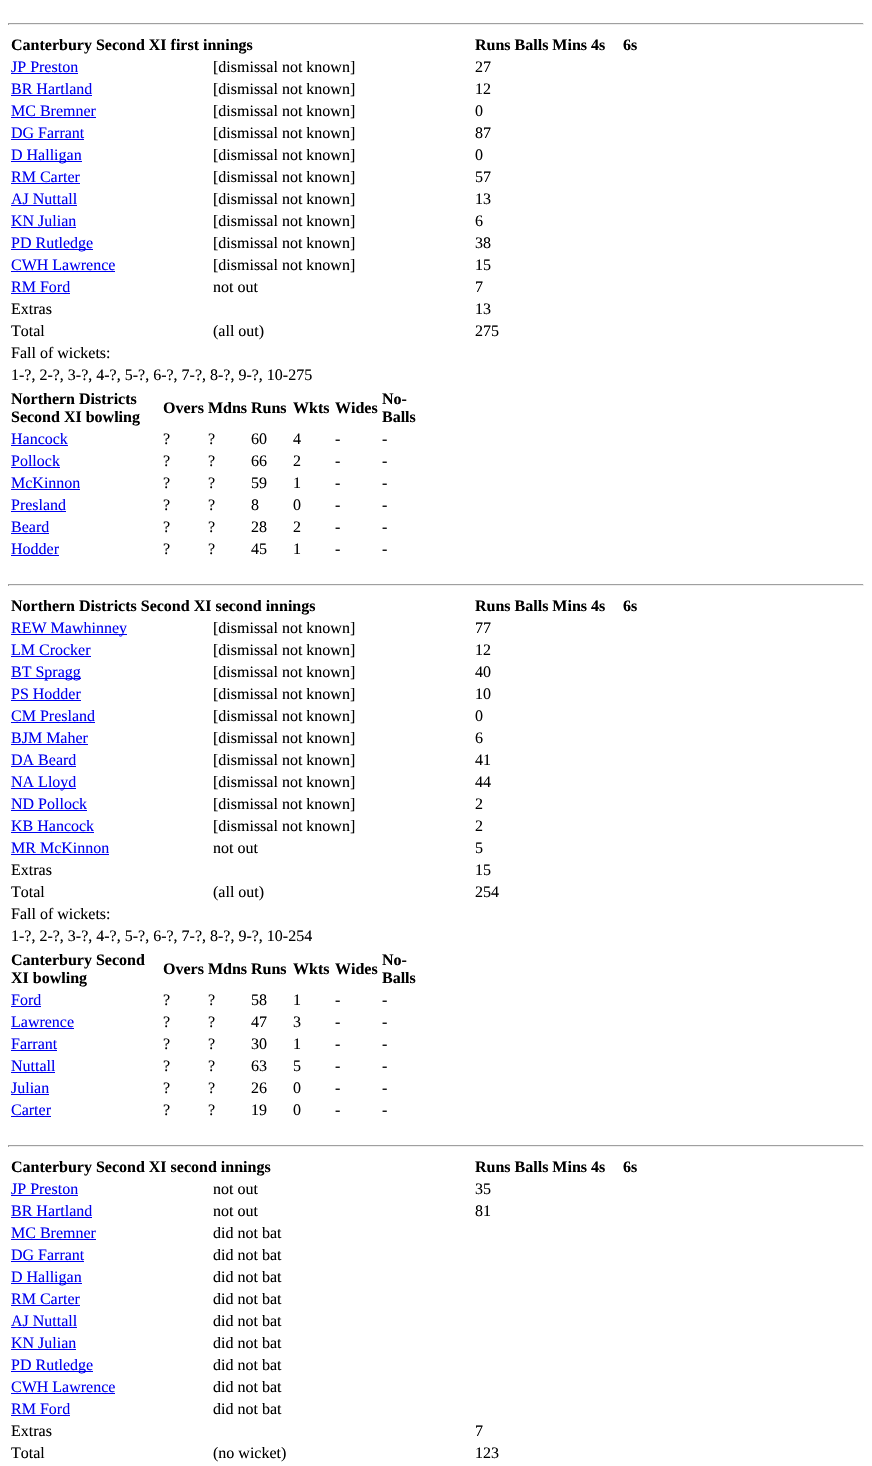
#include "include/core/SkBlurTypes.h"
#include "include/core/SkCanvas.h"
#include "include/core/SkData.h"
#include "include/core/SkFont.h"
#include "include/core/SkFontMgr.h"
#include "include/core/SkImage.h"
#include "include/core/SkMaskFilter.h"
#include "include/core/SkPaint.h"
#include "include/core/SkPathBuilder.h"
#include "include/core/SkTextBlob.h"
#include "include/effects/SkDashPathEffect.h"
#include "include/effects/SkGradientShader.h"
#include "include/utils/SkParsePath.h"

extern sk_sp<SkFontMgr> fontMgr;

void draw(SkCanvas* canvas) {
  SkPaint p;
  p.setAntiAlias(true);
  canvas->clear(SK_ColorWHITE);
  p.setColor(SkColorSetRGB(159, 159, 159));
  canvas->drawRect(SkRect::MakeLTRB(8, 23, 864, 24), p);
  p.setColor(SkColorSetRGB(238, 238, 238));
  canvas->drawRect(SkRect::MakeLTRB(863, 23, 864, 25), p);
  canvas->drawRect(SkRect::MakeLTRB(8, 24, 864, 25), p);
  p.setColor(SkColorSetRGB(159, 159, 159));
  canvas->drawRect(SkRect::MakeLTRB(8, 23, 9, 25), p);
  p.setColor(SkColorSetRGB(0, 0, 238));
  canvas->drawRect(SkRect::MakeLTRB(11, 73, 78, 74), p);
  canvas->drawRect(SkRect::MakeLTRB(11, 95, 92, 96), p);
  canvas->drawRect(SkRect::MakeLTRB(11, 117, 96, 118), p);
  canvas->drawRect(SkRect::MakeLTRB(11, 139, 84, 140), p);
  canvas->drawRect(SkRect::MakeLTRB(11, 161, 82, 162), p);
  canvas->drawRect(SkRect::MakeLTRB(11, 183, 80, 184), p);
  canvas->drawRect(SkRect::MakeLTRB(11, 205, 77, 206), p);
  canvas->drawRect(SkRect::MakeLTRB(11, 227, 76, 228), p);
  canvas->drawRect(SkRect::MakeLTRB(11, 249, 93, 250), p);
  canvas->drawRect(SkRect::MakeLTRB(11, 271, 115, 272), p);
  canvas->drawRect(SkRect::MakeLTRB(11, 293, 70, 294), p);
  canvas->drawRect(SkRect::MakeLTRB(11, 445, 68, 446), p);
  canvas->drawRect(SkRect::MakeLTRB(11, 467, 60, 468), p);
  canvas->drawRect(SkRect::MakeLTRB(11, 489, 80, 490), p);
  canvas->drawRect(SkRect::MakeLTRB(11, 511, 66, 512), p);
  canvas->drawRect(SkRect::MakeLTRB(11, 533, 49, 534), p);
  canvas->drawRect(SkRect::MakeLTRB(11, 555, 59, 556), p);
  p.setColor(SkColorSetRGB(159, 159, 159));
  canvas->drawRect(SkRect::MakeLTRB(8, 584, 864, 585), p);
  p.setColor(SkColorSetRGB(238, 238, 238));
  canvas->drawRect(SkRect::MakeLTRB(863, 584, 864, 586), p);
  canvas->drawRect(SkRect::MakeLTRB(8, 585, 864, 586), p);
  p.setColor(SkColorSetRGB(159, 159, 159));
  canvas->drawRect(SkRect::MakeLTRB(8, 584, 9, 586), p);
  p.setColor(SkColorSetRGB(0, 0, 238));
  canvas->drawRect(SkRect::MakeLTRB(11, 634, 127, 635), p);
  canvas->drawRect(SkRect::MakeLTRB(11, 656, 91, 657), p);
  canvas->drawRect(SkRect::MakeLTRB(11, 678, 81, 679), p);
  canvas->drawRect(SkRect::MakeLTRB(11, 700, 81, 701), p);
  canvas->drawRect(SkRect::MakeLTRB(11, 722, 95, 723), p);
  canvas->drawRect(SkRect::MakeLTRB(11, 744, 88, 745), p);
  canvas->drawRect(SkRect::MakeLTRB(11, 766, 76, 767), p);
  canvas->drawRect(SkRect::MakeLTRB(11, 788, 76, 789), p);
  canvas->drawRect(SkRect::MakeLTRB(11, 810, 87, 811), p);
  canvas->drawRect(SkRect::MakeLTRB(11, 832, 94, 833), p);
  canvas->drawRect(SkRect::MakeLTRB(11, 854, 109, 855), p);
  canvas->drawRect(SkRect::MakeLTRB(11, 1006, 41, 1007), p);
  canvas->drawRect(SkRect::MakeLTRB(11, 1028, 74, 1029), p);
  canvas->drawRect(SkRect::MakeLTRB(11, 1050, 57, 1051), p);
  canvas->drawRect(SkRect::MakeLTRB(11, 1072, 55, 1073), p);
  canvas->drawRect(SkRect::MakeLTRB(11, 1094, 49, 1095), p);
  canvas->drawRect(SkRect::MakeLTRB(11, 1116, 51, 1117), p);
  p.setColor(SkColorSetRGB(159, 159, 159));
  canvas->drawRect(SkRect::MakeLTRB(8, 1145, 864, 1146), p);
  p.setColor(SkColorSetRGB(238, 238, 238));
  canvas->drawRect(SkRect::MakeLTRB(863, 1145, 864, 1147), p);
  canvas->drawRect(SkRect::MakeLTRB(8, 1146, 864, 1147), p);
  p.setColor(SkColorSetRGB(159, 159, 159));
  canvas->drawRect(SkRect::MakeLTRB(8, 1145, 9, 1147), p);
  p.setColor(SkColorSetRGB(0, 0, 238));
  canvas->drawRect(SkRect::MakeLTRB(11, 1195, 78, 1196), p);
  canvas->drawRect(SkRect::MakeLTRB(11, 1217, 92, 1218), p);
  canvas->drawRect(SkRect::MakeLTRB(11, 1239, 96, 1240), p);
  canvas->drawRect(SkRect::MakeLTRB(11, 1261, 84, 1262), p);
  canvas->drawRect(SkRect::MakeLTRB(11, 1283, 82, 1284), p);
  canvas->drawRect(SkRect::MakeLTRB(11, 1305, 80, 1306), p);
  canvas->drawRect(SkRect::MakeLTRB(11, 1327, 77, 1328), p);
  canvas->drawRect(SkRect::MakeLTRB(11, 1349, 76, 1350), p);
  canvas->drawRect(SkRect::MakeLTRB(11, 1371, 93, 1372), p);
  canvas->drawRect(SkRect::MakeLTRB(11, 1393, 115, 1394), p);
  canvas->drawRect(SkRect::MakeLTRB(11, 1415, 70, 1416), p);
  SkFont font1(fontMgr->matchFamilyStyle("Liberation Serif", SkFontStyle::Bold()), 16);
  font1.setSubpixel(true);
  p.setColor(SK_ColorBLACK);
  canvas->drawString("Canterbury Second XI first innings", 11, 50, font1, p);
  canvas->drawString("Runs Balls Mins 4s", 475, 50, font1, p);
  canvas->drawString("6s", 623, 50, font1, p);
  SkFont font2(fontMgr->matchFamilyStyle("Liberation Serif", SkFontStyle::Normal()), 16);
  font2.setSubpixel(true);
  p.setColor(SkColorSetRGB(0, 0, 238));
  canvas->drawString("JP Preston", 11, 72, font2, p);
  p.setColor(SK_ColorBLACK);
  canvas->drawString("[dismissal not known]", 213, 72, font2, p);
  canvas->drawString("27", 475, 72, font2, p);
  p.setColor(SkColorSetRGB(0, 0, 238));
  canvas->drawString("BR Hartland", 11, 94, font2, p);
  p.setColor(SK_ColorBLACK);
  canvas->drawString("[dismissal not known]", 213, 94, font2, p);
  canvas->drawString("12", 475, 94, font2, p);
  p.setColor(SkColorSetRGB(0, 0, 238));
  canvas->drawString("MC Bremner", 11, 116, font2, p);
  p.setColor(SK_ColorBLACK);
  canvas->drawString("[dismissal not known]", 213, 116, font2, p);
  canvas->drawString("0", 475, 116, font2, p);
  p.setColor(SkColorSetRGB(0, 0, 238));
  canvas->drawString("DG Farrant", 11, 138, font2, p);
  p.setColor(SK_ColorBLACK);
  canvas->drawString("[dismissal not known]", 213, 138, font2, p);
  canvas->drawString("87", 475, 138, font2, p);
  p.setColor(SkColorSetRGB(0, 0, 238));
  canvas->drawString("D Halligan", 11, 160, font2, p);
  p.setColor(SK_ColorBLACK);
  canvas->drawString("[dismissal not known]", 213, 160, font2, p);
  canvas->drawString("0", 475, 160, font2, p);
  p.setColor(SkColorSetRGB(0, 0, 238));
  canvas->drawString("RM Carter", 11, 182, font2, p);
  p.setColor(SK_ColorBLACK);
  canvas->drawString("[dismissal not known]", 213, 182, font2, p);
  canvas->drawString("57", 475, 182, font2, p);
  p.setColor(SkColorSetRGB(0, 0, 238));
  canvas->drawString("AJ Nuttall", 11, 204, font2, p);
  p.setColor(SK_ColorBLACK);
  canvas->drawString("[dismissal not known]", 213, 204, font2, p);
  canvas->drawString("13", 475, 204, font2, p);
  p.setColor(SkColorSetRGB(0, 0, 238));
  canvas->drawString("KN Julian", 11, 226, font2, p);
  p.setColor(SK_ColorBLACK);
  canvas->drawString("[dismissal not known]", 213, 226, font2, p);
  canvas->drawString("6", 475, 226, font2, p);
  p.setColor(SkColorSetRGB(0, 0, 238));
  canvas->drawString("PD Rutledge", 11, 248, font2, p);
  p.setColor(SK_ColorBLACK);
  canvas->drawString("[dismissal not known]", 213, 248, font2, p);
  canvas->drawString("38", 475, 248, font2, p);
  p.setColor(SkColorSetRGB(0, 0, 238));
  canvas->drawString("CWH Lawrence", 11, 270, font2, p);
  p.setColor(SK_ColorBLACK);
  canvas->drawString("[dismissal not known]", 213, 270, font2, p);
  canvas->drawString("15", 475, 270, font2, p);
  p.setColor(SkColorSetRGB(0, 0, 238));
  canvas->drawString("RM Ford", 11, 292, font2, p);
  p.setColor(SK_ColorBLACK);
  canvas->drawString("not out", 213, 292, font2, p);
  canvas->drawString("7", 475, 292, font2, p);
  canvas->drawString("Extras", 11, 314, font2, p);
  canvas->drawString("13", 475, 314, font2, p);
  canvas->drawString("Total", 11, 336, font2, p);
  canvas->drawString("(all out)", 213, 336, font2, p);
  canvas->drawString("275", 475, 336, font2, p);
  canvas->drawString("Fall of wickets:", 11, 358, font2, p);
  canvas->drawString("1-?, 2-?, 3-?, 4-?, 5-?, 6-?, 7-?, 8-?, 9-?, 10-275", 11, 380, font2, p);
  canvas->drawString("Northern Districts", 11, 404, font1, p);
  canvas->drawString("Second XI bowling", 11, 422, font1, p);
  canvas->drawString("Overs Mdns Runs", 163, 413, font1, p);
  canvas->drawString("Wkts", 293, 413, font1, p);
  canvas->drawString("Wides", 335, 413, font1, p);
  canvas->drawString("No-", 382, 404, font1, p);
  canvas->drawString("Balls", 382, 422, font1, p);
  p.setColor(SkColorSetRGB(0, 0, 238));
  canvas->drawString("Hancock", 11, 444, font2, p);
  p.setColor(SK_ColorBLACK);
  canvas->drawString("?", 163, 444, font2, p);
  canvas->drawString("?", 208, 444, font2, p);
  canvas->drawString("60", 251, 444, font2, p);
  canvas->drawString("4", 293, 444, font2, p);
  canvas->drawString("-", 335, 444, font2, p);
  canvas->drawString("-", 382, 444, font2, p);
  p.setColor(SkColorSetRGB(0, 0, 238));
  canvas->drawString("Pollock", 11, 466, font2, p);
  p.setColor(SK_ColorBLACK);
  canvas->drawString("?", 163, 466, font2, p);
  canvas->drawString("?", 208, 466, font2, p);
  canvas->drawString("66", 251, 466, font2, p);
  canvas->drawString("2", 293, 466, font2, p);
  canvas->drawString("-", 335, 466, font2, p);
  canvas->drawString("-", 382, 466, font2, p);
  p.setColor(SkColorSetRGB(0, 0, 238));
  canvas->drawString("McKinnon", 11, 488, font2, p);
  p.setColor(SK_ColorBLACK);
  canvas->drawString("?", 163, 488, font2, p);
  canvas->drawString("?", 208, 488, font2, p);
  canvas->drawString("59", 251, 488, font2, p);
  canvas->drawString("1", 293, 488, font2, p);
  canvas->drawString("-", 335, 488, font2, p);
  canvas->drawString("-", 382, 488, font2, p);
  p.setColor(SkColorSetRGB(0, 0, 238));
  canvas->drawString("Presland", 11, 510, font2, p);
  p.setColor(SK_ColorBLACK);
  canvas->drawString("?", 163, 510, font2, p);
  canvas->drawString("?", 208, 510, font2, p);
  canvas->drawString("8", 251, 510, font2, p);
  canvas->drawString("0", 293, 510, font2, p);
  canvas->drawString("-", 335, 510, font2, p);
  canvas->drawString("-", 382, 510, font2, p);
  p.setColor(SkColorSetRGB(0, 0, 238));
  canvas->drawString("Beard", 11, 532, font2, p);
  p.setColor(SK_ColorBLACK);
  canvas->drawString("?", 163, 532, font2, p);
  canvas->drawString("?", 208, 532, font2, p);
  canvas->drawString("28", 251, 532, font2, p);
  canvas->drawString("2", 293, 532, font2, p);
  canvas->drawString("-", 335, 532, font2, p);
  canvas->drawString("-", 382, 532, font2, p);
  p.setColor(SkColorSetRGB(0, 0, 238));
  canvas->drawString("Hodder", 11, 554, font2, p);
  p.setColor(SK_ColorBLACK);
  canvas->drawString("?", 163, 554, font2, p);
  canvas->drawString("?", 208, 554, font2, p);
  canvas->drawString("45", 251, 554, font2, p);
  canvas->drawString("1", 293, 554, font2, p);
  canvas->drawString("-", 335, 554, font2, p);
  canvas->drawString("-", 382, 554, font2, p);
  canvas->drawString("Northern Districts Second XI second innings", 11, 611, font1, p);
  canvas->drawString("Runs Balls Mins 4s", 475, 611, font1, p);
  canvas->drawString("6s", 623, 611, font1, p);
  p.setColor(SkColorSetRGB(0, 0, 238));
  canvas->drawString("REW Mawhinney", 11, 633, font2, p);
  p.setColor(SK_ColorBLACK);
  canvas->drawString("[dismissal not known]", 213, 633, font2, p);
  canvas->drawString("77", 475, 633, font2, p);
  p.setColor(SkColorSetRGB(0, 0, 238));
  canvas->drawString("LM Crocker", 11, 655, font2, p);
  p.setColor(SK_ColorBLACK);
  canvas->drawString("[dismissal not known]", 213, 655, font2, p);
  canvas->drawString("12", 475, 655, font2, p);
  p.setColor(SkColorSetRGB(0, 0, 238));
  canvas->drawString("BT Spragg", 11, 677, font2, p);
  p.setColor(SK_ColorBLACK);
  canvas->drawString("[dismissal not known]", 213, 677, font2, p);
  canvas->drawString("40", 475, 677, font2, p);
  p.setColor(SkColorSetRGB(0, 0, 238));
  canvas->drawString("PS Hodder", 11, 699, font2, p);
  p.setColor(SK_ColorBLACK);
  canvas->drawString("[dismissal not known]", 213, 699, font2, p);
  canvas->drawString("10", 475, 699, font2, p);
  p.setColor(SkColorSetRGB(0, 0, 238));
  canvas->drawString("CM Presland", 11, 721, font2, p);
  p.setColor(SK_ColorBLACK);
  canvas->drawString("[dismissal not known]", 213, 721, font2, p);
  canvas->drawString("0", 475, 721, font2, p);
  p.setColor(SkColorSetRGB(0, 0, 238));
  canvas->drawString("BJM Maher", 11, 743, font2, p);
  p.setColor(SK_ColorBLACK);
  canvas->drawString("[dismissal not known]", 213, 743, font2, p);
  canvas->drawString("6", 475, 743, font2, p);
  p.setColor(SkColorSetRGB(0, 0, 238));
  canvas->drawString("DA Beard", 11, 765, font2, p);
  p.setColor(SK_ColorBLACK);
  canvas->drawString("[dismissal not known]", 213, 765, font2, p);
  canvas->drawString("41", 475, 765, font2, p);
  p.setColor(SkColorSetRGB(0, 0, 238));
  canvas->drawString("NA Lloyd", 11, 787, font2, p);
  p.setColor(SK_ColorBLACK);
  canvas->drawString("[dismissal not known]", 213, 787, font2, p);
  canvas->drawString("44", 475, 787, font2, p);
  p.setColor(SkColorSetRGB(0, 0, 238));
  canvas->drawString("ND Pollock", 11, 809, font2, p);
  p.setColor(SK_ColorBLACK);
  canvas->drawString("[dismissal not known]", 213, 809, font2, p);
  canvas->drawString("2", 475, 809, font2, p);
  p.setColor(SkColorSetRGB(0, 0, 238));
  canvas->drawString("KB Hancock", 11, 831, font2, p);
  p.setColor(SK_ColorBLACK);
  canvas->drawString("[dismissal not known]", 213, 831, font2, p);
  canvas->drawString("2", 475, 831, font2, p);
  p.setColor(SkColorSetRGB(0, 0, 238));
  canvas->drawString("MR McKinnon", 11, 853, font2, p);
  p.setColor(SK_ColorBLACK);
  canvas->drawString("not out", 213, 853, font2, p);
  canvas->drawString("5", 475, 853, font2, p);
  canvas->drawString("Extras", 11, 875, font2, p);
  canvas->drawString("15", 475, 875, font2, p);
  canvas->drawString("Total", 11, 897, font2, p);
  canvas->drawString("(all out)", 213, 897, font2, p);
  canvas->drawString("254", 475, 897, font2, p);
  canvas->drawString("Fall of wickets:", 11, 919, font2, p);
  canvas->drawString("1-?, 2-?, 3-?, 4-?, 5-?, 6-?, 7-?, 8-?, 9-?, 10-254", 11, 941, font2, p);
  canvas->drawString("Canterbury Second", 11, 965, font1, p);
  canvas->drawString("XI bowling", 11, 983, font1, p);
  canvas->drawString("Overs Mdns Runs", 163, 974, font1, p);
  canvas->drawString("Wkts", 293, 974, font1, p);
  canvas->drawString("Wides", 335, 974, font1, p);
  canvas->drawString("No-", 382, 965, font1, p);
  canvas->drawString("Balls", 382, 983, font1, p);
  p.setColor(SkColorSetRGB(0, 0, 238));
  canvas->drawString("Ford", 11, 1005, font2, p);
  p.setColor(SK_ColorBLACK);
  canvas->drawString("?", 163, 1005, font2, p);
  canvas->drawString("?", 208, 1005, font2, p);
  canvas->drawString("58", 251, 1005, font2, p);
  canvas->drawString("1", 293, 1005, font2, p);
  canvas->drawString("-", 335, 1005, font2, p);
  canvas->drawString("-", 382, 1005, font2, p);
  p.setColor(SkColorSetRGB(0, 0, 238));
  canvas->drawString("Lawrence", 11, 1027, font2, p);
  p.setColor(SK_ColorBLACK);
  canvas->drawString("?", 163, 1027, font2, p);
  canvas->drawString("?", 208, 1027, font2, p);
  canvas->drawString("47", 251, 1027, font2, p);
  canvas->drawString("3", 293, 1027, font2, p);
  canvas->drawString("-", 335, 1027, font2, p);
  canvas->drawString("-", 382, 1027, font2, p);
  p.setColor(SkColorSetRGB(0, 0, 238));
  canvas->drawString("Farrant", 11, 1049, font2, p);
  p.setColor(SK_ColorBLACK);
  canvas->drawString("?", 163, 1049, font2, p);
  canvas->drawString("?", 208, 1049, font2, p);
  canvas->drawString("30", 251, 1049, font2, p);
  canvas->drawString("1", 293, 1049, font2, p);
  canvas->drawString("-", 335, 1049, font2, p);
  canvas->drawString("-", 382, 1049, font2, p);
  p.setColor(SkColorSetRGB(0, 0, 238));
  canvas->drawString("Nuttall", 11, 1071, font2, p);
  p.setColor(SK_ColorBLACK);
  canvas->drawString("?", 163, 1071, font2, p);
  canvas->drawString("?", 208, 1071, font2, p);
  canvas->drawString("63", 251, 1071, font2, p);
  canvas->drawString("5", 293, 1071, font2, p);
  canvas->drawString("-", 335, 1071, font2, p);
  canvas->drawString("-", 382, 1071, font2, p);
  p.setColor(SkColorSetRGB(0, 0, 238));
  canvas->drawString("Julian", 11, 1093, font2, p);
  p.setColor(SK_ColorBLACK);
  canvas->drawString("?", 163, 1093, font2, p);
  canvas->drawString("?", 208, 1093, font2, p);
  canvas->drawString("26", 251, 1093, font2, p);
  canvas->drawString("0", 293, 1093, font2, p);
  canvas->drawString("-", 335, 1093, font2, p);
  canvas->drawString("-", 382, 1093, font2, p);
  p.setColor(SkColorSetRGB(0, 0, 238));
  canvas->drawString("Carter", 11, 1115, font2, p);
  p.setColor(SK_ColorBLACK);
  canvas->drawString("?", 163, 1115, font2, p);
  canvas->drawString("?", 208, 1115, font2, p);
  canvas->drawString("19", 251, 1115, font2, p);
  canvas->drawString("0", 293, 1115, font2, p);
  canvas->drawString("-", 335, 1115, font2, p);
  canvas->drawString("-", 382, 1115, font2, p);
  canvas->drawString("Canterbury Second XI second innings", 11, 1172, font1, p);
  canvas->drawString("Runs Balls Mins 4s", 475, 1172, font1, p);
  canvas->drawString("6s", 623, 1172, font1, p);
  p.setColor(SkColorSetRGB(0, 0, 238));
  canvas->drawString("JP Preston", 11, 1194, font2, p);
  p.setColor(SK_ColorBLACK);
  canvas->drawString("not out", 213, 1194, font2, p);
  canvas->drawString("35", 475, 1194, font2, p);
  p.setColor(SkColorSetRGB(0, 0, 238));
  canvas->drawString("BR Hartland", 11, 1216, font2, p);
  p.setColor(SK_ColorBLACK);
  canvas->drawString("not out", 213, 1216, font2, p);
  canvas->drawString("81", 475, 1216, font2, p);
  p.setColor(SkColorSetRGB(0, 0, 238));
  canvas->drawString("MC Bremner", 11, 1238, font2, p);
  p.setColor(SK_ColorBLACK);
  canvas->drawString("did not bat", 213, 1238, font2, p);
  p.setColor(SkColorSetRGB(0, 0, 238));
  canvas->drawString("DG Farrant", 11, 1260, font2, p);
  p.setColor(SK_ColorBLACK);
  canvas->drawString("did not bat", 213, 1260, font2, p);
  p.setColor(SkColorSetRGB(0, 0, 238));
  canvas->drawString("D Halligan", 11, 1282, font2, p);
  p.setColor(SK_ColorBLACK);
  canvas->drawString("did not bat", 213, 1282, font2, p);
  p.setColor(SkColorSetRGB(0, 0, 238));
  canvas->drawString("RM Carter", 11, 1304, font2, p);
  p.setColor(SK_ColorBLACK);
  canvas->drawString("did not bat", 213, 1304, font2, p);
  p.setColor(SkColorSetRGB(0, 0, 238));
  canvas->drawString("AJ Nuttall", 11, 1326, font2, p);
  p.setColor(SK_ColorBLACK);
  canvas->drawString("did not bat", 213, 1326, font2, p);
  p.setColor(SkColorSetRGB(0, 0, 238));
  canvas->drawString("KN Julian", 11, 1348, font2, p);
  p.setColor(SK_ColorBLACK);
  canvas->drawString("did not bat", 213, 1348, font2, p);
  p.setColor(SkColorSetRGB(0, 0, 238));
  canvas->drawString("PD Rutledge", 11, 1370, font2, p);
  p.setColor(SK_ColorBLACK);
  canvas->drawString("did not bat", 213, 1370, font2, p);
  p.setColor(SkColorSetRGB(0, 0, 238));
  canvas->drawString("CWH Lawrence", 11, 1392, font2, p);
  p.setColor(SK_ColorBLACK);
  canvas->drawString("did not bat", 213, 1392, font2, p);
  p.setColor(SkColorSetRGB(0, 0, 238));
  canvas->drawString("RM Ford", 11, 1414, font2, p);
  p.setColor(SK_ColorBLACK);
  canvas->drawString("did not bat", 213, 1414, font2, p);
  canvas->drawString("Extras", 11, 1436, font2, p);
  canvas->drawString("7", 475, 1436, font2, p);
  canvas->drawString("Total", 11, 1458, font2, p);
  canvas->drawString("(no wicket)", 213, 1458, font2, p);
  canvas->drawString("123", 475, 1458, font2, p);
}
